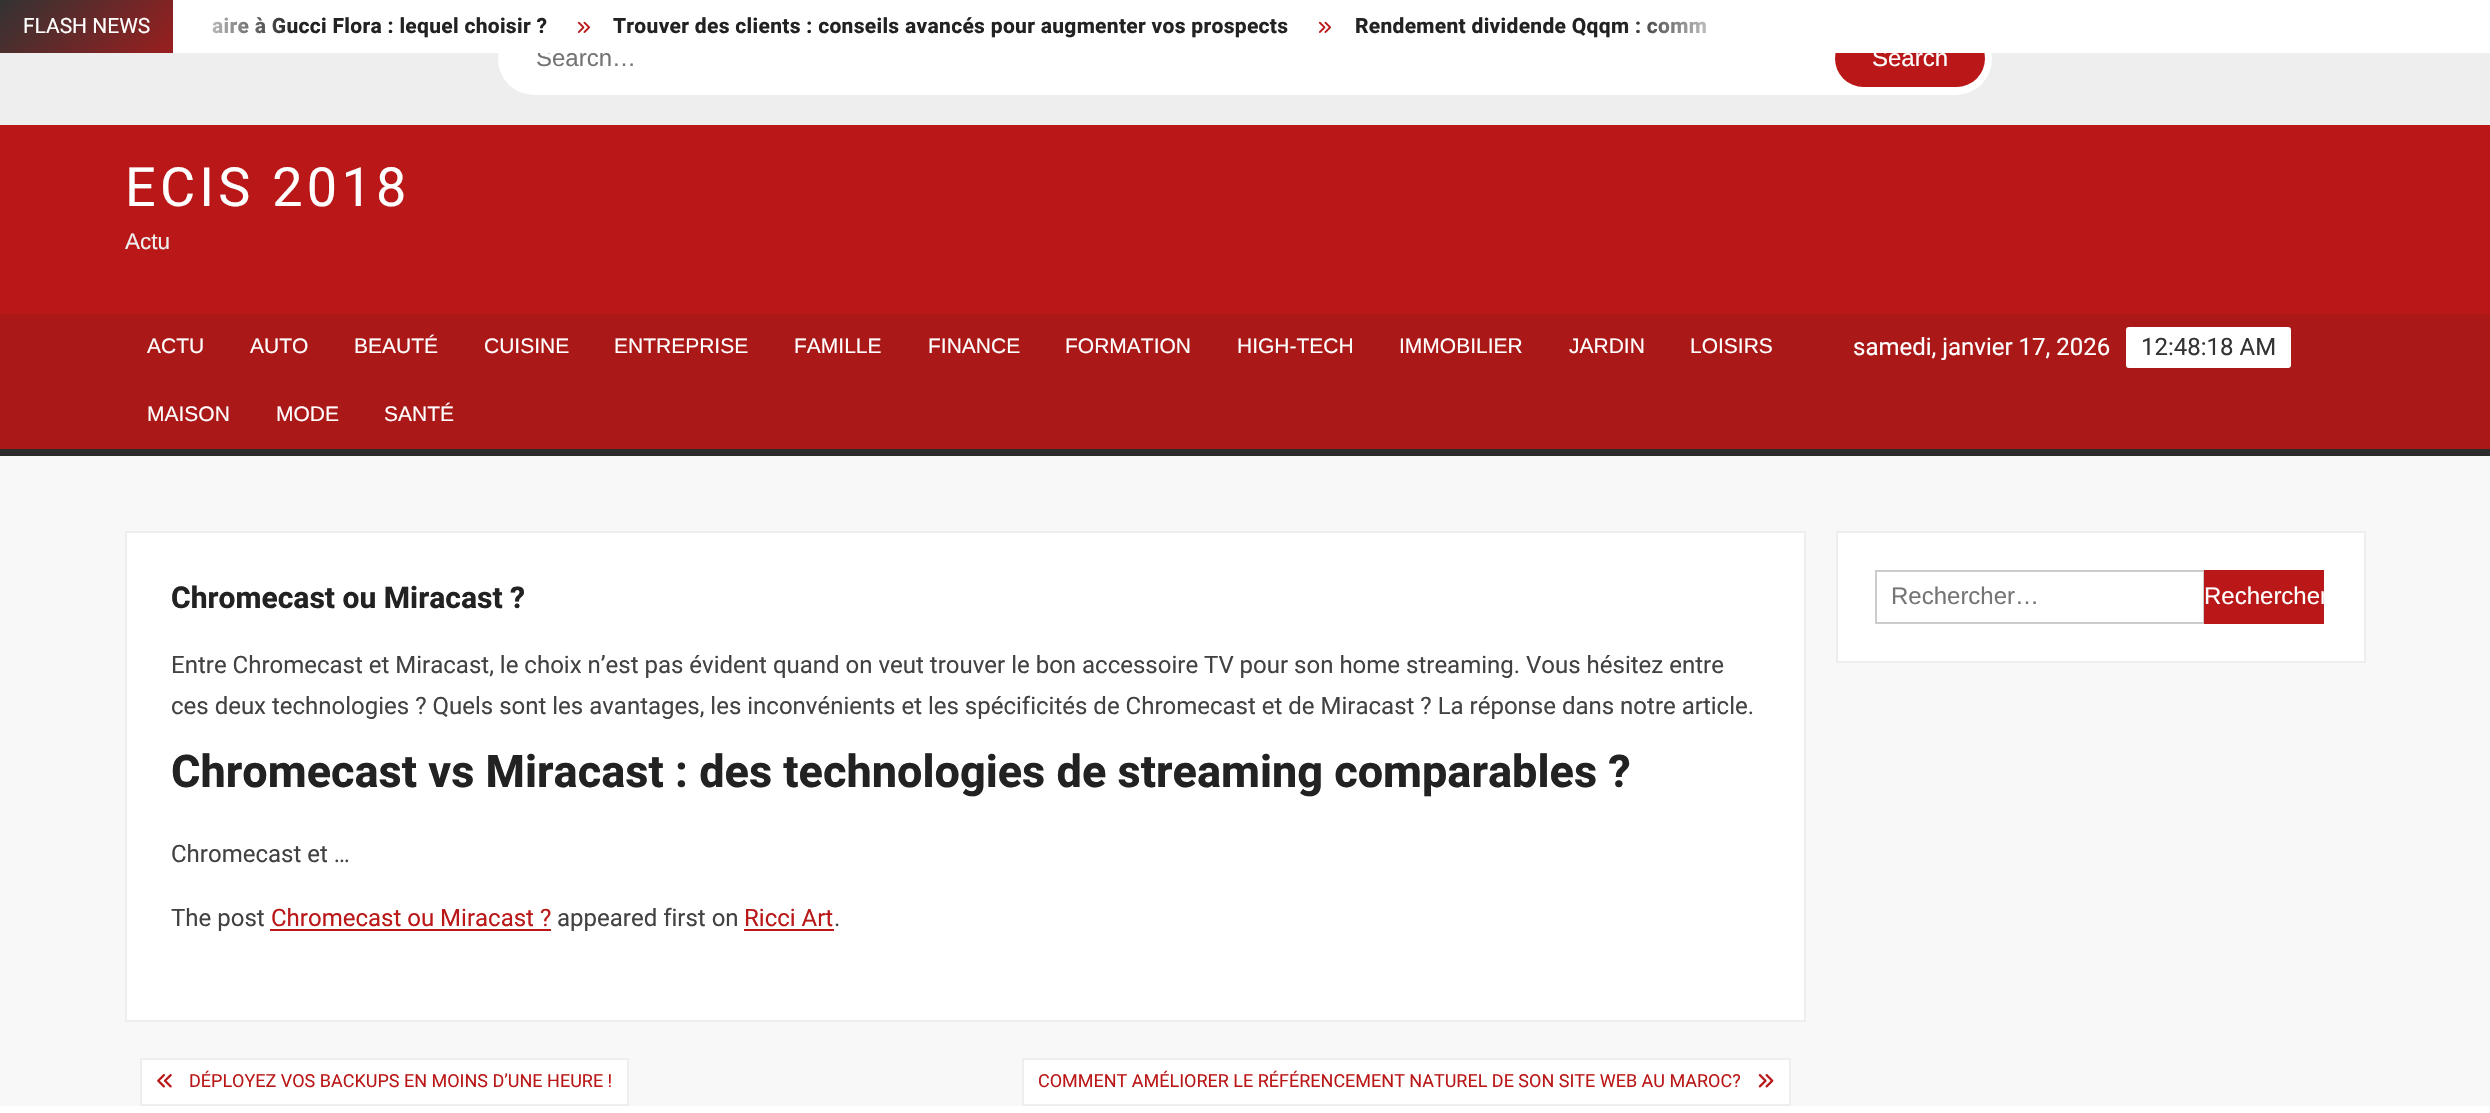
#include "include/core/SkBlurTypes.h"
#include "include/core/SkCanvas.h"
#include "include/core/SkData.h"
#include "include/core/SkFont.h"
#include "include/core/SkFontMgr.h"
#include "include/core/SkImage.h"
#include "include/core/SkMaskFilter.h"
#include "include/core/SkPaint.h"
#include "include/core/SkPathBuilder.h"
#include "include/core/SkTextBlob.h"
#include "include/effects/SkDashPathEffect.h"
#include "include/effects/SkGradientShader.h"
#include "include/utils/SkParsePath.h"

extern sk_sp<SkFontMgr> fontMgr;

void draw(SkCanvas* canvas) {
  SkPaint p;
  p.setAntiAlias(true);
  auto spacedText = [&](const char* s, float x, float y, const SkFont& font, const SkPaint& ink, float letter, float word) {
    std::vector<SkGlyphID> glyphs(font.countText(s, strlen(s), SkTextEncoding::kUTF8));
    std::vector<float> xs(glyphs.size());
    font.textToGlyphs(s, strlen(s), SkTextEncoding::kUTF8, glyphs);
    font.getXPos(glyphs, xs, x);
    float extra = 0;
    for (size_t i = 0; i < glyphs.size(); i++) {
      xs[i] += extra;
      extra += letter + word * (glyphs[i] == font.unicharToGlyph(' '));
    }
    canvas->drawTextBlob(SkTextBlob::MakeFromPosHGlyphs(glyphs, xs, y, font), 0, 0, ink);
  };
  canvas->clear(SkColorSetRGB(248, 248, 248));
  {
    const SkColor colors[] = {SkColorSetRGB(186, 24, 24), SkColorSetRGB(238, 238, 238), SkColorSetRGB(186, 24, 24), SkColorSetRGB(51, 51, 51)};
    const float stops[] = {0, 0.33f, 0.67f, 1};
    const SkPoint ends[] = {{570, 330}, {120, -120}};
    p.setShader(SkGradientShader::MakeLinear(ends, colors, stops, 4, SkTileMode::kClamp));
    p.setAlpha(255);
  }
  canvas->drawRect(SkRect::MakeLTRB(0, 0, 173, 53), p);
  p.setShader(nullptr);
  p.setColor(SkColorSetRGB(238, 238, 238));
  canvas->drawRect(SkRect::MakeLTRB(0, 53, 2490, 125), p);
  p.setColor(SK_ColorWHITE);
  canvas->drawRoundRect(SkRect::MakeLTRB(498, 23, 1992, 95), 36, 36, p);
  p.setColor(SkColorSetRGB(186, 24, 24));
  canvas->drawRoundRect(SkRect::MakeLTRB(1835, 30, 1985, 87), 28.5f, 28.5f, p);
  canvas->drawRect(SkRect::MakeLTRB(0, 125, 2490, 314), p);
  p.setColor(SkColorSetRGB(170, 24, 24));
  canvas->drawRect(SkRect::MakeLTRB(0, 314, 2490, 449), p);
  p.setColor(SkColorSetRGB(44, 44, 44));
  canvas->drawRect(SkRect::MakeLTRB(0, 449, 2490, 456), p);
  p.setColor(SK_ColorWHITE);
  canvas->drawRoundRect(SkRect::MakeLTRB(2126, 327, 2291, 368), 3, 3, p);
  canvas->drawRect(SkRect::MakeLTRB(126, 532, 1805, 1021), p);
  p.setStyle(SkPaint::kStroke_Style);
  p.setStrokeWidth(2);
  p.setColor(SkColorSetRGB(238, 238, 238));
  canvas->drawRect(SkRect::MakeLTRB(126, 532, 1805, 1021), p);
  p.setStyle(SkPaint::kFill_Style);
  p.setColor(SkColorSetRGB(186, 24, 24));
  canvas->drawRect(SkRect::MakeLTRB(270, 929, 551, 931), p);
  canvas->drawRect(SkRect::MakeLTRB(744, 929, 834, 931), p);
  p.setColor(SK_ColorWHITE);
  canvas->drawRect(SkRect::MakeLTRB(141, 1059, 628, 1105), p);
  p.setStyle(SkPaint::kStroke_Style);
  p.setColor(SkColorSetRGB(238, 238, 238));
  canvas->drawRect(SkRect::MakeLTRB(141, 1059, 628, 1105), p);
  canvas->drawImageRect(SkImages::DeferredFromEncodedData(SkData::MakeFromFileName("images/2.png")), SkRect::MakeLTRB(157, 1074, 172, 1088), SkSamplingOptions());
  p.setStyle(SkPaint::kFill_Style);
  p.setColor(SK_ColorWHITE);
  canvas->drawRect(SkRect::MakeLTRB(1023, 1059, 1790, 1105), p);
  p.setStyle(SkPaint::kStroke_Style);
  p.setColor(SkColorSetRGB(238, 238, 238));
  canvas->drawRect(SkRect::MakeLTRB(1023, 1059, 1790, 1105), p);
  canvas->drawImageRect(SkImages::DeferredFromEncodedData(SkData::MakeFromFileName("images/3.png")), SkRect::MakeLTRB(1758, 1074, 1774, 1088), SkSamplingOptions());
  p.setStyle(SkPaint::kFill_Style);
  p.setColor(SK_ColorWHITE);
  canvas->drawRect(SkRect::MakeLTRB(1837, 532, 2365, 662), p);
  p.setStyle(SkPaint::kStroke_Style);
  p.setColor(SkColorSetRGB(238, 238, 238));
  canvas->drawRect(SkRect::MakeLTRB(1837, 532, 2365, 662), p);
  p.setColor(SkColorSetRGB(204, 204, 204));
  canvas->drawRect(SkRect::MakeLTRB(1876, 571, 2204, 623), p);
  p.setStyle(SkPaint::kFill_Style);
  p.setColor(SkColorSetRGB(186, 24, 24));
  canvas->drawRect(SkRect::MakeLTRB(2204, 570, 2324, 624), p);
  p.setColor(SK_ColorWHITE);
  canvas->drawRect(SkRect::MakeLTRB(0, 1106, 2490, 1113), p);
  SkFont font1(fontMgr->matchFamilyStyle("Heebo", SkFontStyle::Normal()), 21);
  font1.setSubpixel(true);
  canvas->drawString("FLASH NEWS", 23, 33, font1, p);
  SkFont font2(fontMgr->matchFamilyStyle("Arimo", SkFontStyle::Normal()), 24);
  font2.setSubpixel(true);
  p.setColor(SkColorSetRGB(117, 117, 117));
  canvas->drawString("Search…", 536, 66, font2, p);
  p.setColor(SK_ColorWHITE);
  canvas->drawRect(SkRect::MakeLTRB(174, 0, 2490, 53), p);
  SkFont font3(fontMgr->matchFamilyStyle("Heebo", SkFontStyle::Bold()), 21);
  font3.setSubpixel(true);
  p.setColor(SkColorSetRGB(34, 34, 34));
  spacedText("Rendement dividende Qqqm : comm", 1355, 33, font3, p, 0.3f, 0);
  {
    const SkColor colors[] = {SkColorSetARGB(0, 255, 255, 255), SK_ColorWHITE};
    const float stops[] = {0, 1};
    const SkPoint ends[] = {{1623, 26}, {1743, 26}};
    p.setShader(SkGradientShader::MakeLinear(ends, colors, stops, 2, SkTileMode::kClamp));
    p.setAlpha(255);
  }
  canvas->drawRect(SkRect::MakeLTRB(1626, 21, 1706, 34), p);
  p.setShader(nullptr);
  p.setColor(SkColorSetRGB(34, 34, 34));
  spacedText("aire à Gucci Flora : lequel choisir ?", 212, 33, font3, p, 0.3f, 0);
  {
    const SkColor colors[] = {SK_ColorWHITE, SkColorSetARGB(0, 255, 255, 255)};
    const float stops[] = {0, 1};
    const SkPoint ends[] = {{173, 26}, {293, 26}};
    p.setShader(SkGradientShader::MakeLinear(ends, colors, stops, 2, SkTileMode::kClamp));
    p.setAlpha(255);
  }
  canvas->drawRect(SkRect::MakeLTRB(173, 0, 290, 53), p);
  canvas->drawImageRect(SkImages::DeferredFromEncodedData(SkData::MakeFromFileName("images/1.png")), SkRect::MakeLTRB(1318, 21, 1331, 33), SkSamplingOptions());
  p.setShader(nullptr);
  p.setColor(SkColorSetRGB(34, 34, 34));
  spacedText("Trouver des clients : conseils avancés pour augmenter vos prospects", 613, 33, font3, p, 0.3f, 0);
  canvas->drawImageRect(SkImages::DeferredFromEncodedData(SkData::MakeFromFileName("images/1.png")), SkRect::MakeLTRB(577, 21, 590, 33), SkSamplingOptions());
  p.setColor(SK_ColorWHITE);
  canvas->drawString("Search", 1872, 66, font2, p);
  SkFont font4(fontMgr->matchFamilyStyle("Heebo", SkFontStyle::Normal()), 54);
  font4.setSubpixel(true);
  spacedText("ECIS 2018", 125, 206, font4, p, 4.25f, 0);
  SkFont font5(fontMgr->matchFamilyStyle("Arimo", SkFontStyle::Normal()), 22.5f);
  font5.setSubpixel(true);
  p.setColor(SkColorSetRGB(238, 238, 238));
  canvas->drawString("Actu", 125, 249, font5, p);
  SkFont font6(fontMgr->matchFamilyStyle("Arimo", SkFontStyle::Normal()), 21);
  font6.setSubpixel(true);
  p.setColor(SK_ColorWHITE);
  canvas->drawString("ACTU", 147, 353, font6, p);
  canvas->drawString("AUTO", 250, 353, font6, p);
  canvas->drawString("BEAUTÉ", 354, 353, font6, p);
  canvas->drawString("CUISINE", 484, 353, font6, p);
  canvas->drawString("ENTREPRISE", 614, 353, font6, p);
  canvas->drawString("FAMILLE", 794, 353, font6, p);
  canvas->drawString("FINANCE", 928, 353, font6, p);
  canvas->drawString("FORMATION", 1065, 353, font6, p);
  canvas->drawString("HIGH-TECH", 1237, 353, font6, p);
  canvas->drawString("IMMOBILIER", 1399, 353, font6, p);
  canvas->drawString("JARDIN", 1569, 353, font6, p);
  canvas->drawString("LOISIRS", 1690, 353, font6, p);
  canvas->drawString("MAISON", 147, 421, font6, p);
  canvas->drawString("MODE", 276, 421, font6, p);
  canvas->drawString("SANTÉ", 384, 421, font6, p);
  SkFont font7(fontMgr->matchFamilyStyle("Roboto", SkFontStyle::Normal()), 24);
  font7.setSubpixel(true);
  canvas->drawString("samedi, janvier 17, 2026", 1853, 355, font7, p);
  p.setColor(SkColorSetRGB(51, 51, 51));
  canvas->drawString("12:48:18 AM", 2141, 355, font7, p);
  SkFont font8(fontMgr->matchFamilyStyle("Heebo", SkFontStyle::Bold()), 30);
  font8.setSubpixel(true);
  p.setColor(SkColorSetRGB(34, 34, 34));
  canvas->drawString("Chromecast ou Miracast ?", 171, 608, font8, p);
  p.setColor(SkColorSetRGB(66, 66, 66));
  canvas->drawString("Entre Chromecast et Miracast, le choix n’est pas évident quand on veut trouver le bon accessoire TV pour son home streaming. Vous hésitez entre", 171, 673, font7, p);
  canvas->drawString("ces deux technologies ? Quels sont les avantages, les inconvénients et les spécificités de Chromecast et de Miracast ? La réponse dans notre article.", 171, 714, font7, p);
  SkFont font9(fontMgr->matchFamilyStyle("Heebo", SkFontStyle::Bold()), 45);
  font9.setSubpixel(true);
  p.setColor(SkColorSetRGB(34, 34, 34));
  canvas->drawString("Chromecast vs Miracast : des technologies de streaming comparables ?", 171, 787, font9, p);
  p.setColor(SkColorSetRGB(66, 66, 66));
  canvas->drawString("Chromecast et …", 171, 862, font7, p);
  canvas->drawString("The post", 171, 926, font7, p);
  p.setColor(SkColorSetRGB(186, 24, 24));
  canvas->drawString("Chromecast ou Miracast ?", 271, 926, font7, p);
  p.setColor(SkColorSetRGB(66, 66, 66));
  canvas->drawString("appeared first on", 557, 926, font7, p);
  p.setColor(SkColorSetRGB(186, 24, 24));
  canvas->drawString("Ricci Art", 744, 926, font7, p);
  p.setColor(SkColorSetRGB(66, 66, 66));
  canvas->drawString(".", 834, 926, font7, p);
  SkFont font10(fontMgr->matchFamilyStyle("Roboto", SkFontStyle::Normal()), 18);
  font10.setSubpixel(true);
  p.setColor(SkColorSetRGB(186, 24, 24));
  canvas->drawString("DÉPLOYEZ VOS BACKUPS EN MOINS D’UNE HEURE !", 189, 1087, font10, p);
  canvas->drawString("COMMENT AMÉLIORER LE RÉFÉRENCEMENT NATUREL DE SON SITE WEB AU MAROC?", 1038, 1087, font10, p);
  p.setColor(SkColorSetRGB(117, 117, 117));
  canvas->drawString("Rechercher…", 1891, 604, font2, p);
  canvas->save();
  canvas->clipRect(SkRect::MakeLTRB(2204, 570, 2324, 624));
  p.setColor(SK_ColorWHITE);
  canvas->drawString("Rechercher", 2204, 604, font2, p);
  canvas->restore();
}
